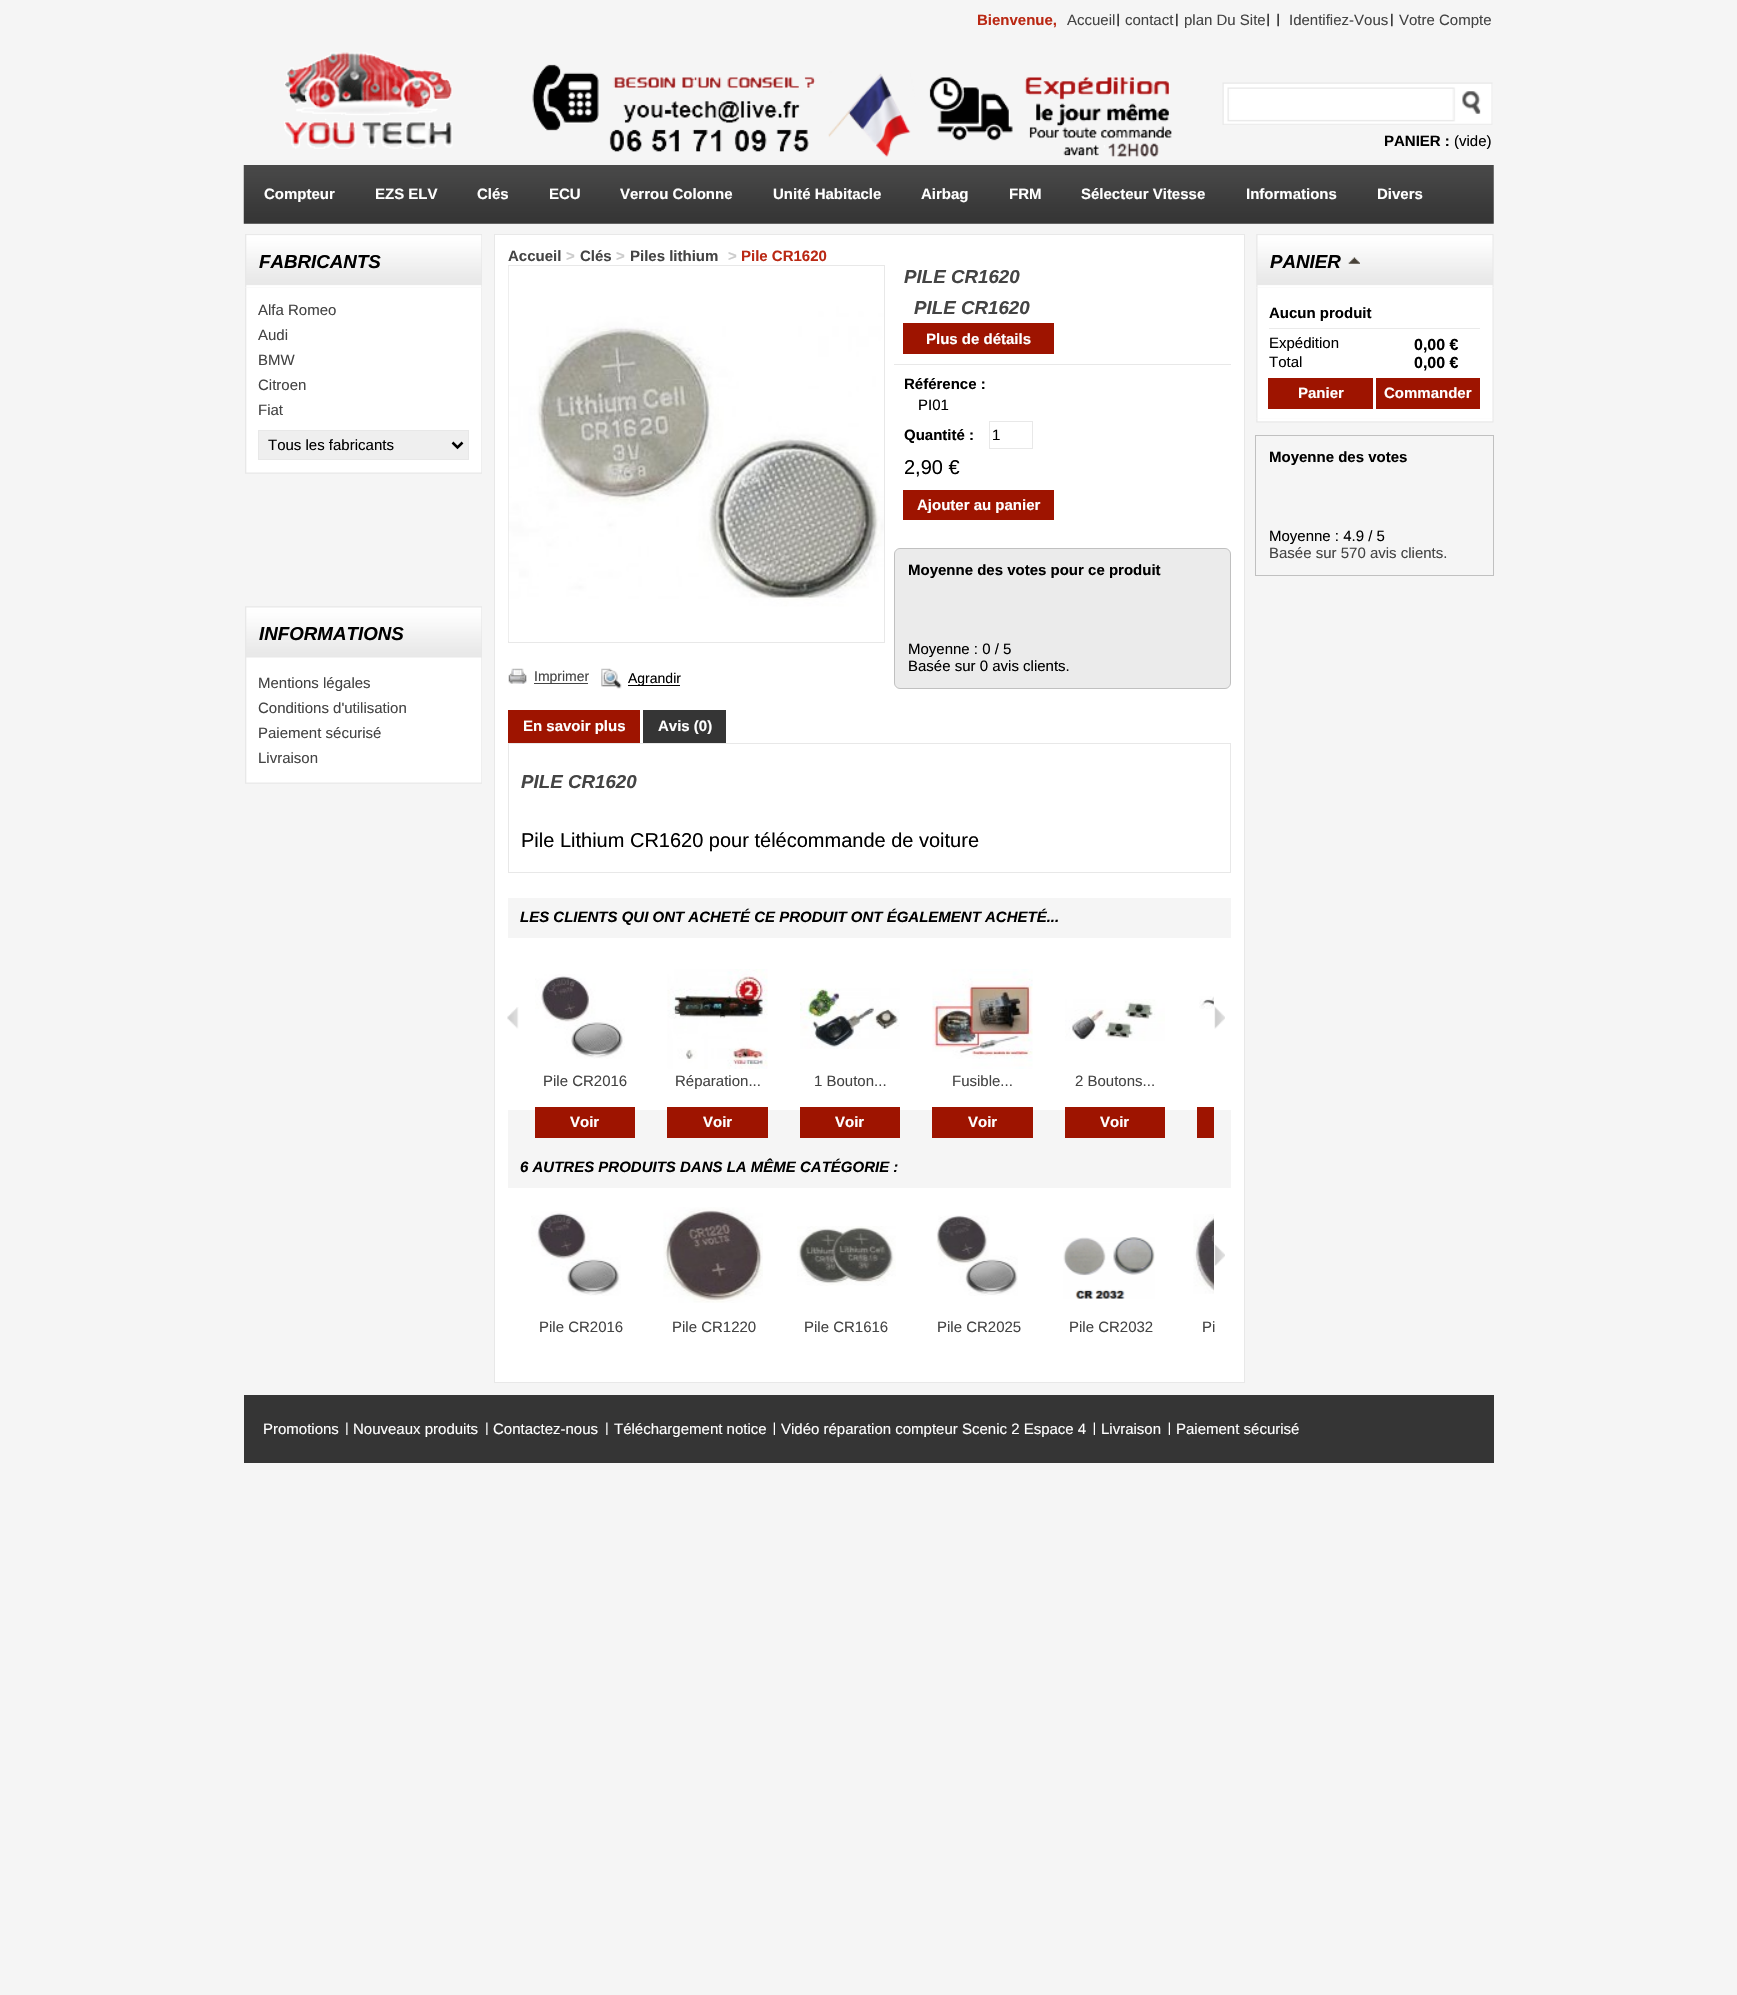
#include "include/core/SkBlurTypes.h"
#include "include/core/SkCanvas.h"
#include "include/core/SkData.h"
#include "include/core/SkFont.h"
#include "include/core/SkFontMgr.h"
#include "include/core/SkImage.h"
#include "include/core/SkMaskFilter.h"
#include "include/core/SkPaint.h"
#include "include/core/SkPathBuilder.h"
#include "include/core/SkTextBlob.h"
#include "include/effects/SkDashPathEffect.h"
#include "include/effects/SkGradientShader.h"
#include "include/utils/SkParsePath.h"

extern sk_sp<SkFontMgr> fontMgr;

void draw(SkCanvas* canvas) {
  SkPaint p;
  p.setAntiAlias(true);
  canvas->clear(SkColorSetRGB(245, 245, 245));
  canvas->drawImageRect(SkImages::DeferredFromEncodedData(SkData::MakeFromFileName("images/1.png")), SkRect::MakeLTRB(1117, 13, 1119, 27), SkSamplingOptions());
  canvas->drawImageRect(SkImages::DeferredFromEncodedData(SkData::MakeFromFileName("images/2.png")), SkRect::MakeLTRB(1176, 13, 1178, 27), SkSamplingOptions());
  canvas->drawImageRect(SkImages::DeferredFromEncodedData(SkData::MakeFromFileName("images/1.png")), SkRect::MakeLTRB(1267, 13, 1269, 27), SkSamplingOptions());
  canvas->drawImageRect(SkImages::DeferredFromEncodedData(SkData::MakeFromFileName("images/1.png")), SkRect::MakeLTRB(1277, 13, 1279, 27), SkSamplingOptions());
  canvas->drawImageRect(SkImages::DeferredFromEncodedData(SkData::MakeFromFileName("images/2.png")), SkRect::MakeLTRB(1391, 13, 1393, 27), SkSamplingOptions());
  canvas->drawImageRect(SkImages::DeferredFromEncodedData(SkData::MakeFromFileName("images/3.png")), SkRect::MakeLTRB(1222, 82, 1493, 125), SkSamplingOptions());
  canvas->drawImageRect(SkImages::DeferredFromEncodedData(SkData::MakeFromFileName("images/4.png")), SkRect::MakeLTRB(1462, 91, 1481, 114), SkSamplingOptions());
  canvas->drawImageRect(SkImages::DeferredFromEncodedData(SkData::MakeFromFileName("images/5.png")), SkRect::MakeLTRB(243, 165, 1494, 224), SkSamplingOptions());
  canvas->drawImageRect(SkImages::DeferredFromEncodedData(SkData::MakeFromFileName("images/6.png")), SkRect::MakeLTRB(284, 52, 1172, 157), SkSamplingOptions());
  canvas->drawImageRect(SkImages::DeferredFromEncodedData(SkData::MakeFromFileName("images/7.png")), SkRect::MakeLTRB(245, 470, 482, 474), SkSamplingOptions());
  canvas->drawImageRect(SkImages::DeferredFromEncodedData(SkData::MakeFromFileName("images/8.png")), SkRect::MakeLTRB(245, 234, 482, 288), SkSamplingOptions());
  canvas->drawImageRect(SkImages::DeferredFromEncodedData(SkData::MakeFromFileName("images/9.png")), SkRect::MakeLTRB(245, 288, 482, 470), SkSamplingOptions());
  p.setColor(SkColorSetRGB(239, 239, 239));
  canvas->drawRect(SkRect::MakeLTRB(258.5f, 430.5f, 468.5f, 459.5f), p);
  p.setStyle(SkPaint::kStroke_Style);
  p.setStrokeWidth(1);
  p.setColor(SkColorSetRGB(232, 232, 232));
  canvas->drawRect(SkRect::MakeLTRB(258.5f, 430.5f, 468.5f, 459.5f), p);
  p.setStrokeWidth(2.5f);
  p.setColor(SK_ColorBLACK);
  canvas->drawPath(SkPathBuilder().moveTo(452.5f, 442.5f).lineTo(457.5f, 447.5f).lineTo(462.5f, 442.5f).detach(), p);
  canvas->drawImageRect(SkImages::DeferredFromEncodedData(SkData::MakeFromFileName("images/10.png")), SkRect::MakeLTRB(245, 780, 482, 784), SkSamplingOptions());
  canvas->drawImageRect(SkImages::DeferredFromEncodedData(SkData::MakeFromFileName("images/11.png")), SkRect::MakeLTRB(245, 606, 482, 660), SkSamplingOptions());
  canvas->drawImageRect(SkImages::DeferredFromEncodedData(SkData::MakeFromFileName("images/12.png")), SkRect::MakeLTRB(245, 660, 482, 780), SkSamplingOptions());
  p.setStyle(SkPaint::kFill_Style);
  p.setColor(SK_ColorWHITE);
  canvas->drawRect(SkRect::MakeLTRB(494.5f, 234.5f, 1244.5f, 1382.5f), p);
  p.setStyle(SkPaint::kStroke_Style);
  p.setStrokeWidth(1);
  p.setColor(SkColorSetRGB(232, 232, 232));
  canvas->drawRect(SkRect::MakeLTRB(494.5f, 234.5f, 1244.5f, 1382.5f), p);
  p.setStyle(SkPaint::kFill_Style);
  canvas->drawRect(SkRect::MakeLTRB(894, 364, 1231, 365), p);
  p.setColor(SkColorSetRGB(158, 20, 0));
  canvas->drawRect(SkRect::MakeLTRB(903, 323, 1054, 354), p);
  p.setStyle(SkPaint::kStroke_Style);
  p.setColor(SkColorSetRGB(232, 232, 232));
  canvas->drawRect(SkRect::MakeLTRB(989.5f, 421.5f, 1032.5f, 448.5f), p);
  p.setStyle(SkPaint::kFill_Style);
  p.setColor(SkColorSetRGB(158, 20, 0));
  canvas->drawRect(SkRect::MakeLTRB(903, 490, 1054, 520), p);
  p.setColor(SkColorSetRGB(235, 235, 235));
  canvas->drawRoundRect(SkRect::MakeLTRB(894.5f, 548.5f, 1230.5f, 688.5f), 5.5f, 5.5f, p);
  p.setStyle(SkPaint::kStroke_Style);
  p.setColor(SkColorSetRGB(192, 192, 192));
  canvas->drawRoundRect(SkRect::MakeLTRB(894.5f, 548.5f, 1230.5f, 688.5f), 5.5f, 5.5f, p);
  p.setColor(SkColorSetRGB(232, 232, 232));
  canvas->drawRect(SkRect::MakeLTRB(508.5f, 265.5f, 884.5f, 642.5f), p);
  canvas->drawImageRect(SkImages::DeferredFromEncodedData(SkData::MakeFromFileName("images/13.png")), SkRect::MakeLTRB(508, 266, 884, 641), SkSamplingOptions());
  canvas->drawImageRect(SkImages::DeferredFromEncodedData(SkData::MakeFromFileName("images/14.png")), SkRect::MakeLTRB(508, 668, 527, 684), SkSamplingOptions());
  p.setStyle(SkPaint::kFill_Style);
  p.setColor(SkColorSetRGB(68, 68, 68));
  canvas->drawRect(SkRect::MakeLTRB(534, 683, 588, 684), p);
  canvas->drawImageRect(SkImages::DeferredFromEncodedData(SkData::MakeFromFileName("images/15.png")), SkRect::MakeLTRB(601, 668, 622, 689), SkSamplingOptions());
  p.setColor(SK_ColorBLACK);
  canvas->drawRect(SkRect::MakeLTRB(628, 685, 680, 686), p);
  p.setColor(SkColorSetRGB(158, 20, 0));
  canvas->drawRect(SkRect::MakeLTRB(508, 710, 640, 743), p);
  p.setColor(SkColorSetRGB(53, 53, 53));
  canvas->drawRect(SkRect::MakeLTRB(643, 710, 726, 743), p);
  p.setStyle(SkPaint::kStroke_Style);
  p.setColor(SkColorSetRGB(232, 232, 232));
  canvas->drawRect(SkRect::MakeLTRB(508.5f, 743.5f, 1230.5f, 872.5f), p);
  p.setStyle(SkPaint::kFill_Style);
  p.setColor(SkColorSetRGB(245, 245, 245));
  canvas->drawRect(SkRect::MakeLTRB(508, 898, 1231, 938), p);
  canvas->drawImageRect(SkImages::DeferredFromEncodedData(SkData::MakeFromFileName("images/16.png")), SkRect::MakeLTRB(507, 1007, 519, 1029), SkSamplingOptions());
  canvas->drawImageRect(SkImages::DeferredFromEncodedData(SkData::MakeFromFileName("images/17.png")), SkRect::MakeLTRB(1214, 1006, 1225, 1029), SkSamplingOptions());
  canvas->drawImageRect(SkImages::DeferredFromEncodedData(SkData::MakeFromFileName("images/18.png")), SkRect::MakeLTRB(535, 974, 625, 1059), SkSamplingOptions());
  canvas->drawRect(SkRect::MakeLTRB(508, 1110, 1231, 1188), p);
  p.setColor(SkColorSetRGB(158, 20, 0));
  canvas->drawRect(SkRect::MakeLTRB(535, 1107, 635, 1138), p);
  canvas->drawImageRect(SkImages::DeferredFromEncodedData(SkData::MakeFromFileName("images/19.png")), SkRect::MakeLTRB(667, 969, 768, 1069), SkSamplingOptions());
  canvas->drawRect(SkRect::MakeLTRB(667, 1107, 768, 1138), p);
  canvas->drawImageRect(SkImages::DeferredFromEncodedData(SkData::MakeFromFileName("images/20.png")), SkRect::MakeLTRB(800, 988, 900, 1049), SkSamplingOptions());
  canvas->drawRect(SkRect::MakeLTRB(800, 1107, 900, 1138), p);
  canvas->drawImageRect(SkImages::DeferredFromEncodedData(SkData::MakeFromFileName("images/21.png")), SkRect::MakeLTRB(932, 969, 1033, 1069), SkSamplingOptions());
  canvas->drawRect(SkRect::MakeLTRB(932, 1107, 1033, 1138), p);
  canvas->drawImageRect(SkImages::DeferredFromEncodedData(SkData::MakeFromFileName("images/22.png")), SkRect::MakeLTRB(1065, 999, 1165, 1041), SkSamplingOptions());
  canvas->drawRect(SkRect::MakeLTRB(1065, 1107, 1165, 1138), p);
  canvas->drawImageRect(SkImages::DeferredFromEncodedData(SkData::MakeFromFileName("images/23.png")), SkRect::MakeLTRB(1199, 996, 1214, 1009), SkSamplingOptions());
  canvas->drawRect(SkRect::MakeLTRB(1197, 1107, 1214, 1138), p);
  canvas->drawImageRect(SkImages::DeferredFromEncodedData(SkData::MakeFromFileName("images/24.png")), SkRect::MakeLTRB(1214, 1244, 1225, 1266), SkSamplingOptions());
  canvas->drawImageRect(SkImages::DeferredFromEncodedData(SkData::MakeFromFileName("images/25.png")), SkRect::MakeLTRB(531, 1211, 621, 1296), SkSamplingOptions());
  canvas->drawImageRect(SkImages::DeferredFromEncodedData(SkData::MakeFromFileName("images/26.png")), SkRect::MakeLTRB(663, 1207, 763, 1303), SkSamplingOptions());
  canvas->drawImageRect(SkImages::DeferredFromEncodedData(SkData::MakeFromFileName("images/27.png")), SkRect::MakeLTRB(797, 1226, 896, 1286), SkSamplingOptions());
  canvas->drawImageRect(SkImages::DeferredFromEncodedData(SkData::MakeFromFileName("images/28.png")), SkRect::MakeLTRB(936, 1215, 1018, 1296), SkSamplingOptions());
  canvas->drawImageRect(SkImages::DeferredFromEncodedData(SkData::MakeFromFileName("images/29.png")), SkRect::MakeLTRB(1063, 1237, 1155, 1299), SkSamplingOptions());
  canvas->drawImageRect(SkImages::DeferredFromEncodedData(SkData::MakeFromFileName("images/30.png")), SkRect::MakeLTRB(1193, 1214, 1214, 1294), SkSamplingOptions());
  canvas->drawImageRect(SkImages::DeferredFromEncodedData(SkData::MakeFromFileName("images/31.png")), SkRect::MakeLTRB(1256, 419, 1494, 423), SkSamplingOptions());
  canvas->drawImageRect(SkImages::DeferredFromEncodedData(SkData::MakeFromFileName("images/32.png")), SkRect::MakeLTRB(1256, 234, 1494, 288), SkSamplingOptions());
  canvas->drawImageRect(SkImages::DeferredFromEncodedData(SkData::MakeFromFileName("images/33.png")), SkRect::MakeLTRB(1348, 257, 1360, 264), SkSamplingOptions());
  canvas->drawImageRect(SkImages::DeferredFromEncodedData(SkData::MakeFromFileName("images/34.png")), SkRect::MakeLTRB(1256, 288, 1494, 419), SkSamplingOptions());
  p.setColor(SkColorSetRGB(234, 234, 234));
  canvas->drawRect(SkRect::MakeLTRB(1269, 328, 1480, 329), p);
  p.setColor(SkColorSetRGB(158, 20, 0));
  canvas->drawRect(SkRect::MakeLTRB(1268, 378, 1373, 409), p);
  canvas->drawRect(SkRect::MakeLTRB(1376, 378, 1480, 409), p);
  p.setStyle(SkPaint::kStroke_Style);
  p.setColor(SkColorSetRGB(192, 192, 192));
  canvas->drawRect(SkRect::MakeLTRB(1255.5f, 435.5f, 1493.5f, 575.5f), p);
  p.setStyle(SkPaint::kFill_Style);
  p.setColor(SkColorSetRGB(53, 53, 53));
  canvas->drawRect(SkRect::MakeLTRB(244, 1395, 1494, 1463), p);
  canvas->drawImageRect(SkImages::DeferredFromEncodedData(SkData::MakeFromFileName("images/35.png")), SkRect::MakeLTRB(346, 1422, 348, 1435), SkSamplingOptions());
  canvas->drawImageRect(SkImages::DeferredFromEncodedData(SkData::MakeFromFileName("images/35.png")), SkRect::MakeLTRB(486, 1422, 488, 1435), SkSamplingOptions());
  canvas->drawImageRect(SkImages::DeferredFromEncodedData(SkData::MakeFromFileName("images/35.png")), SkRect::MakeLTRB(606, 1422, 608, 1435), SkSamplingOptions());
  canvas->drawImageRect(SkImages::DeferredFromEncodedData(SkData::MakeFromFileName("images/36.png")), SkRect::MakeLTRB(773, 1422, 775, 1435), SkSamplingOptions());
  canvas->drawImageRect(SkImages::DeferredFromEncodedData(SkData::MakeFromFileName("images/36.png")), SkRect::MakeLTRB(1093, 1422, 1095, 1435), SkSamplingOptions());
  canvas->drawImageRect(SkImages::DeferredFromEncodedData(SkData::MakeFromFileName("images/36.png")), SkRect::MakeLTRB(1168, 1422, 1170, 1435), SkSamplingOptions());
  SkFont font1(fontMgr->matchFamilyStyle("Liberation Sans", SkFontStyle::Bold()), 15);
  font1.setSubpixel(true);
  p.setColor(SkColorSetRGB(186, 40, 19));
  canvas->drawString("Bienvenue,", 977, 25, font1, p);
  SkFont font2(fontMgr->matchFamilyStyle("Liberation Sans", SkFontStyle::Normal()), 15);
  font2.setSubpixel(true);
  p.setColor(SkColorSetRGB(68, 68, 68));
  canvas->drawString("Accueil", 1067, 25, font2, p);
  canvas->drawString("contact", 1125, 25, font2, p);
  canvas->drawString("plan Du Site", 1184, 25, font2, p);
  canvas->drawString("Identifiez-Vous", 1289, 25, font2, p);
  canvas->drawString("Votre Compte", 1399, 25, font2, p);
  p.setColor(SK_ColorBLACK);
  canvas->drawString("PANIER :", 1384, 146, font1, p);
  canvas->drawString("(vide)", 1454, 146, font2, p);
  p.setColor(SK_ColorWHITE);
  canvas->drawString("Compteur", 264, 199, font1, p);
  canvas->drawString("EZS ELV", 375, 199, font1, p);
  canvas->drawString("Clés", 477, 199, font1, p);
  canvas->drawString("ECU", 549, 199, font1, p);
  canvas->drawString("Verrou Colonne", 620, 199, font1, p);
  canvas->drawString("Unité Habitacle", 773, 199, font1, p);
  canvas->drawString("Airbag", 921, 199, font1, p);
  canvas->drawString("FRM", 1009, 199, font1, p);
  canvas->drawString("Sélecteur Vitesse", 1081, 199, font1, p);
  canvas->drawString("Informations", 1246, 199, font1, p);
  canvas->drawString("Divers", 1377, 199, font1, p);
  SkFont font3(fontMgr->matchFamilyStyle("Liberation Sans", SkFontStyle::BoldItalic()), 18.75f);
  font3.setSubpixel(true);
  p.setColor(SK_ColorBLACK);
  canvas->drawString("FABRICANTS", 259, 268, font3, p);
  p.setColor(SkColorSetRGB(68, 68, 68));
  canvas->drawString("Alfa Romeo", 258, 315, font2, p);
  canvas->drawString("Audi", 258, 340, font2, p);
  canvas->drawString("BMW", 258, 365, font2, p);
  canvas->drawString("Citroen", 258, 390, font2, p);
  canvas->drawString("Fiat", 258, 415, font2, p);
  p.setColor(SK_ColorBLACK);
  canvas->drawString("Tous les fabricants", 268, 450, font2, p);
  canvas->drawString("INFORMATIONS", 259, 640, font3, p);
  p.setColor(SkColorSetRGB(68, 68, 68));
  canvas->drawString("Mentions légales", 258, 688, font2, p);
  canvas->drawString("Conditions d'utilisation", 258, 713, font2, p);
  canvas->drawString("Paiement sécurisé", 258, 738, font2, p);
  canvas->drawString("Livraison", 258, 763, font2, p);
  canvas->drawString("Accueil", 508, 261, font1, p);
  p.setColor(SkColorSetRGB(204, 204, 204));
  canvas->drawString(">", 566, 261, font1, p);
  p.setColor(SkColorSetRGB(68, 68, 68));
  canvas->drawString("Clés", 580, 261, font1, p);
  p.setColor(SkColorSetRGB(204, 204, 204));
  canvas->drawString(">", 616, 261, font1, p);
  p.setColor(SkColorSetRGB(68, 68, 68));
  canvas->drawString("Piles lithium", 630, 261, font1, p);
  p.setColor(SkColorSetRGB(204, 204, 204));
  canvas->drawString(">", 728, 261, font1, p);
  p.setColor(SkColorSetRGB(186, 40, 19));
  canvas->drawString("Pile CR1620", 741, 261, font1, p);
  p.setColor(SkColorSetRGB(68, 68, 68));
  canvas->drawString("PILE CR1620", 904, 283, font3, p);
  canvas->drawString("PILE CR1620", 914, 314, font3, p);
  p.setColor(SK_ColorWHITE);
  canvas->drawString("Plus de détails", 926, 344, font1, p);
  p.setColor(SK_ColorBLACK);
  canvas->drawString("Référence :", 904, 389, font1, p);
  canvas->drawString("PI01", 918, 410, font2, p);
  canvas->drawString("Quantité :", 904, 440, font1, p);
  canvas->drawString("1", 992, 440, font2, p);
  SkFont font4(fontMgr->matchFamilyStyle("Liberation Sans", SkFontStyle::Normal()), 20);
  font4.setSubpixel(true);
  canvas->drawString("2,90 €", 904, 474, font4, p);
  p.setColor(SK_ColorWHITE);
  canvas->drawString("Ajouter au panier", 917, 510, font1, p);
  p.setColor(SK_ColorBLACK);
  canvas->drawString("Moyenne des votes pour ce produit", 908, 575, font1, p);
  canvas->drawString("Moyenne : 0 / 5", 908, 654, font2, p);
  canvas->drawString("Basée sur 0 avis clients.", 908, 671, font2, p);
  SkFont font5(fontMgr->matchFamilyStyle("Liberation Sans", SkFontStyle::Normal()), 14);
  font5.setSubpixel(true);
  p.setColor(SkColorSetRGB(68, 68, 68));
  canvas->drawString("Imprimer", 534, 681, font5, p);
  p.setColor(SK_ColorBLACK);
  canvas->drawString("Agrandir", 628, 683, font5, p);
  p.setColor(SK_ColorWHITE);
  canvas->drawString("En savoir plus", 523, 731, font1, p);
  canvas->drawString("Avis (0)", 658, 731, font1, p);
  p.setColor(SkColorSetRGB(68, 68, 68));
  canvas->drawString("PILE CR1620", 521, 788, font3, p);
  p.setColor(SK_ColorBLACK);
  canvas->drawString("Pile Lithium CR1620 pour télécommande de voiture", 521, 847, font4, p);
  SkFont font6(fontMgr->matchFamilyStyle("Liberation Sans", SkFontStyle::BoldItalic()), 15);
  font6.setSubpixel(true);
  canvas->drawString("LES CLIENTS QUI ONT ACHETÉ CE PRODUIT ONT ÉGALEMENT ACHETÉ...", 520, 922, font6, p);
  p.setColor(SkColorSetRGB(68, 68, 68));
  canvas->drawString("Pile CR2016", 543, 1086, font2, p);
  p.setColor(SK_ColorWHITE);
  canvas->drawString("Voir", 570, 1127, font1, p);
  p.setColor(SkColorSetRGB(68, 68, 68));
  canvas->drawString("Réparation...", 675, 1086, font2, p);
  p.setColor(SK_ColorWHITE);
  canvas->drawString("Voir", 703, 1127, font1, p);
  p.setColor(SkColorSetRGB(68, 68, 68));
  canvas->drawString("1 Bouton...", 814, 1086, font2, p);
  p.setColor(SK_ColorWHITE);
  canvas->drawString("Voir", 835, 1127, font1, p);
  p.setColor(SkColorSetRGB(68, 68, 68));
  canvas->drawString("Fusible...", 952, 1086, font2, p);
  p.setColor(SK_ColorWHITE);
  canvas->drawString("Voir", 968, 1127, font1, p);
  p.setColor(SkColorSetRGB(68, 68, 68));
  canvas->drawString("2 Boutons...", 1075, 1086, font2, p);
  p.setColor(SK_ColorWHITE);
  canvas->drawString("Voir", 1100, 1127, font1, p);
  p.setColor(SK_ColorBLACK);
  canvas->drawString("6 AUTRES PRODUITS DANS LA MÊME CATÉGORIE :", 520, 1172, font6, p);
  p.setColor(SkColorSetRGB(68, 68, 68));
  canvas->drawString("Pile CR2016", 539, 1332, font2, p);
  canvas->drawString("Pile CR1220", 672, 1332, font2, p);
  canvas->drawString("Pile CR1616", 804, 1332, font2, p);
  canvas->drawString("Pile CR2025", 937, 1332, font2, p);
  canvas->drawString("Pile CR2032", 1069, 1332, font2, p);
  canvas->drawString("Pi", 1202, 1332, font2, p);
  p.setColor(SK_ColorBLACK);
  canvas->drawString("PANIER", 1270, 268, font3, p);
  canvas->drawString("Aucun produit", 1269, 318, font1, p);
  canvas->drawString("Expédition", 1269, 348, font2, p);
  SkFont font7(fontMgr->matchFamilyStyle("Liberation Sans", SkFontStyle::Bold()), 16);
  font7.setSubpixel(true);
  canvas->drawString("0,00 €", 1414, 350, font7, p);
  canvas->drawString("Total", 1269, 367, font2, p);
  canvas->drawString("0,00 €", 1414, 368, font7, p);
  p.setColor(SK_ColorWHITE);
  canvas->drawString("Panier", 1298, 398, font1, p);
  canvas->drawString("Commander", 1384, 398, font1, p);
  p.setColor(SK_ColorBLACK);
  canvas->drawString("Moyenne des votes", 1269, 462, font1, p);
  canvas->drawString("Moyenne : 4.9 / 5", 1269, 541, font2, p);
  p.setColor(SkColorSetRGB(68, 68, 68));
  canvas->drawString("Basée sur 570 avis clients.", 1269, 558, font2, p);
  p.setColor(SK_ColorWHITE);
  canvas->drawString("Promotions", 263, 1434, font2, p);
  canvas->drawString("Nouveaux produits", 353, 1434, font2, p);
  canvas->drawString("Contactez-nous", 493, 1434, font2, p);
  canvas->drawString("Téléchargement notice", 614, 1434, font2, p);
  canvas->drawString("Vidéo réparation compteur Scenic 2 Espace 4", 781, 1434, font2, p);
  canvas->drawString("Livraison", 1101, 1434, font2, p);
  canvas->drawString("Paiement sécurisé", 1176, 1434, font2, p);
}
